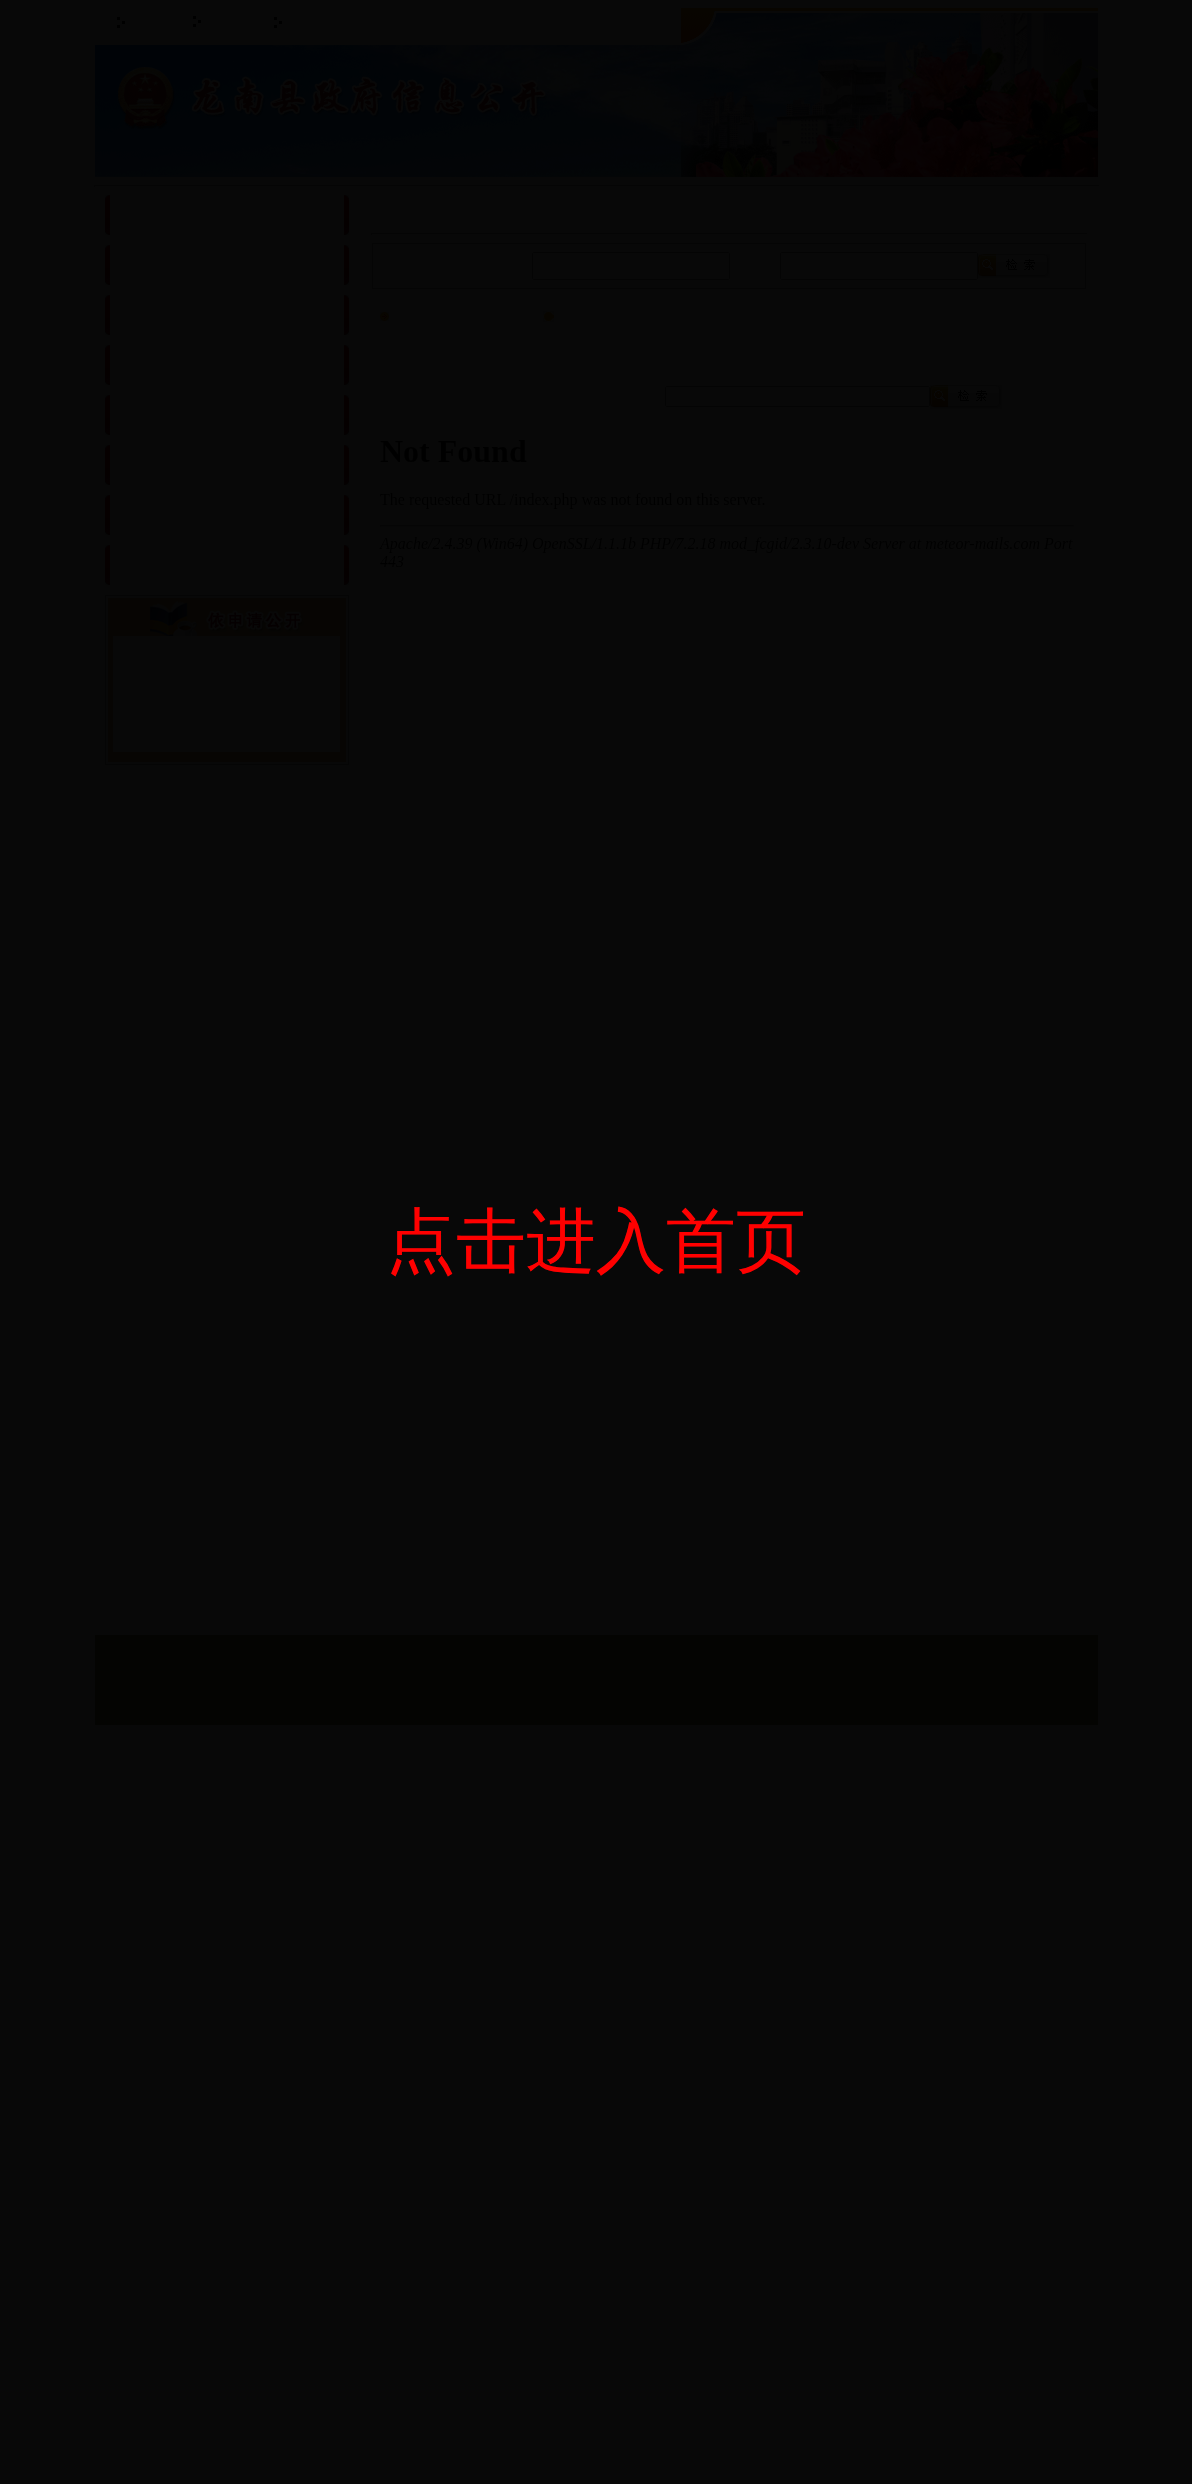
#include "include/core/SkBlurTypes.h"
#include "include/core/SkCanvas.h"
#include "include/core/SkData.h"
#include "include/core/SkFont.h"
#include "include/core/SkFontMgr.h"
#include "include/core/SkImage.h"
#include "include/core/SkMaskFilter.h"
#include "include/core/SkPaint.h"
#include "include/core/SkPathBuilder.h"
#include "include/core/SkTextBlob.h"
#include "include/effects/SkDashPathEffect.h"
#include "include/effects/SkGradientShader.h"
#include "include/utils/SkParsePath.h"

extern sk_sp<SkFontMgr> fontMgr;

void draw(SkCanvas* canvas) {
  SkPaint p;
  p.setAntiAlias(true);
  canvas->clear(SkColorSetRGB(8, 8, 8));
  canvas->drawImageRect(SkImages::DeferredFromEncodedData(SkData::MakeFromFileName("images/1.png")), SkRect::MakeLTRB(117, 17, 125, 28), SkSamplingOptions());
  canvas->drawImageRect(SkImages::DeferredFromEncodedData(SkData::MakeFromFileName("images/1.png")), SkRect::MakeLTRB(193, 16, 201, 27), SkSamplingOptions());
  canvas->drawImageRect(SkImages::DeferredFromEncodedData(SkData::MakeFromFileName("images/1.png")), SkRect::MakeLTRB(274, 17, 282, 28), SkSamplingOptions());
  canvas->drawImageRect(SkImages::DeferredFromEncodedData(SkData::MakeFromFileName("images/2.png")), SkRect::MakeLTRB(95, 45, 681, 177), SkSamplingOptions());
  canvas->drawImageRect(SkImages::DeferredFromEncodedData(SkData::MakeFromFileName("images/3.png")), SkRect::MakeLTRB(681, 8, 1098, 177), SkSamplingOptions());
  p.setColor(SkColorSetRGB(5, 5, 5));
  canvas->drawRect(SkRect::MakeLTRB(94, 185, 1099, 186), p);
  canvas->drawRect(SkRect::MakeLTRB(94, 185, 95, 187), p);
  canvas->drawImageRect(SkImages::DeferredFromEncodedData(SkData::MakeFromFileName("images/4.png")), SkRect::MakeLTRB(105, 195, 110, 235), SkSamplingOptions());
  canvas->drawImageRect(SkImages::DeferredFromEncodedData(SkData::MakeFromFileName("images/5.png")), SkRect::MakeLTRB(344, 195, 349, 235), SkSamplingOptions());
  canvas->drawImageRect(SkImages::DeferredFromEncodedData(SkData::MakeFromFileName("images/4.png")), SkRect::MakeLTRB(105, 245, 110, 285), SkSamplingOptions());
  canvas->drawImageRect(SkImages::DeferredFromEncodedData(SkData::MakeFromFileName("images/5.png")), SkRect::MakeLTRB(344, 245, 349, 285), SkSamplingOptions());
  canvas->drawImageRect(SkImages::DeferredFromEncodedData(SkData::MakeFromFileName("images/4.png")), SkRect::MakeLTRB(105, 295, 110, 335), SkSamplingOptions());
  canvas->drawImageRect(SkImages::DeferredFromEncodedData(SkData::MakeFromFileName("images/5.png")), SkRect::MakeLTRB(344, 295, 349, 335), SkSamplingOptions());
  canvas->drawImageRect(SkImages::DeferredFromEncodedData(SkData::MakeFromFileName("images/4.png")), SkRect::MakeLTRB(105, 345, 110, 385), SkSamplingOptions());
  canvas->drawImageRect(SkImages::DeferredFromEncodedData(SkData::MakeFromFileName("images/5.png")), SkRect::MakeLTRB(344, 345, 349, 385), SkSamplingOptions());
  canvas->drawImageRect(SkImages::DeferredFromEncodedData(SkData::MakeFromFileName("images/4.png")), SkRect::MakeLTRB(105, 395, 110, 435), SkSamplingOptions());
  canvas->drawImageRect(SkImages::DeferredFromEncodedData(SkData::MakeFromFileName("images/5.png")), SkRect::MakeLTRB(344, 395, 349, 435), SkSamplingOptions());
  canvas->drawImageRect(SkImages::DeferredFromEncodedData(SkData::MakeFromFileName("images/4.png")), SkRect::MakeLTRB(105, 445, 110, 485), SkSamplingOptions());
  canvas->drawImageRect(SkImages::DeferredFromEncodedData(SkData::MakeFromFileName("images/5.png")), SkRect::MakeLTRB(344, 445, 349, 485), SkSamplingOptions());
  canvas->drawImageRect(SkImages::DeferredFromEncodedData(SkData::MakeFromFileName("images/4.png")), SkRect::MakeLTRB(105, 495, 110, 535), SkSamplingOptions());
  canvas->drawImageRect(SkImages::DeferredFromEncodedData(SkData::MakeFromFileName("images/5.png")), SkRect::MakeLTRB(344, 495, 349, 535), SkSamplingOptions());
  canvas->drawImageRect(SkImages::DeferredFromEncodedData(SkData::MakeFromFileName("images/4.png")), SkRect::MakeLTRB(105, 545, 110, 585), SkSamplingOptions());
  canvas->drawImageRect(SkImages::DeferredFromEncodedData(SkData::MakeFromFileName("images/5.png")), SkRect::MakeLTRB(344, 545, 349, 585), SkSamplingOptions());
  p.setStyle(SkPaint::kStroke_Style);
  p.setStrokeWidth(1);
  canvas->drawRect(SkRect::MakeLTRB(105.5f, 595.5f, 348.5f, 764.5f), p);
  p.setStyle(SkPaint::kFill_Style);
  p.setColor(SkColorSetRGB(7, 5, 3));
  canvas->drawRect(SkRect::MakeLTRB(108, 598, 346, 762), p);
  canvas->drawImageRect(SkImages::DeferredFromEncodedData(SkData::MakeFromFileName("images/6.png")), SkRect::MakeLTRB(150, 601, 304, 636), SkSamplingOptions());
  p.setColor(SkColorSetRGB(8, 8, 8));
  canvas->drawRect(SkRect::MakeLTRB(113, 636, 340, 752), p);
  p.setColor(SkColorSetRGB(5, 5, 5));
  canvas->drawRect(SkRect::MakeLTRB(371, 233, 1087, 234), p);
  canvas->drawRect(SkRect::MakeLTRB(371, 233, 372, 235), p);
  p.setStyle(SkPaint::kStroke_Style);
  canvas->drawRect(SkRect::MakeLTRB(372.5f, 243.5f, 1085.5f, 288.5f), p);
  p.setColor(SkColorSetRGB(4, 4, 4));
  canvas->drawRoundRect(SkRect::MakeLTRB(532.5f, 252.5f, 729.5f, 279.5f), 1.5f, 1.5f, p);
  canvas->drawRoundRect(SkRect::MakeLTRB(780.5f, 252.5f, 977.5f, 279.5f), 1.5f, 1.5f, p);
  canvas->drawImageRect(SkImages::DeferredFromEncodedData(SkData::MakeFromFileName("images/7.png")), SkRect::MakeLTRB(978, 254, 1050, 278), SkSamplingOptions());
  canvas->drawImageRect(SkImages::DeferredFromEncodedData(SkData::MakeFromFileName("images/8.png")), SkRect::MakeLTRB(380, 312, 389, 321), SkSamplingOptions());
  canvas->drawImageRect(SkImages::DeferredFromEncodedData(SkData::MakeFromFileName("images/9.png")), SkRect::MakeLTRB(543, 311, 554, 322), SkSamplingOptions());
  canvas->drawRoundRect(SkRect::MakeLTRB(665.5f, 386.5f, 929.5f, 406.5f), 1.5f, 1.5f, p);
  canvas->drawImageRect(SkImages::DeferredFromEncodedData(SkData::MakeFromFileName("images/7.png")), SkRect::MakeLTRB(930, 385, 1002, 409), SkSamplingOptions());
  canvas->drawImageRect(SkImages::DeferredFromEncodedData(SkData::MakeFromFileName("images/10.png")), SkRect::MakeLTRB(379, 440, 1074, 567), SkSamplingOptions());
  p.setStyle(SkPaint::kFill_Style);
  p.setColor(SkColorSetRGB(4, 4, 2));
  canvas->drawRect(SkRect::MakeLTRB(95, 1635, 1098, 1725), p);
  SkFont font1(fontMgr->matchFamilyStyle("WenQuanYi Zen Hei", SkFontStyle(500, SkFontStyle::kNormal_Width, SkFontStyle::kUpright_Slant)), 70);
  font1.setSubpixel(true);
  p.setColor(SkColorSetRGB(255, 0, 0));
  canvas->drawString("点击进入首页", 386, 1265, font1, p);
}
